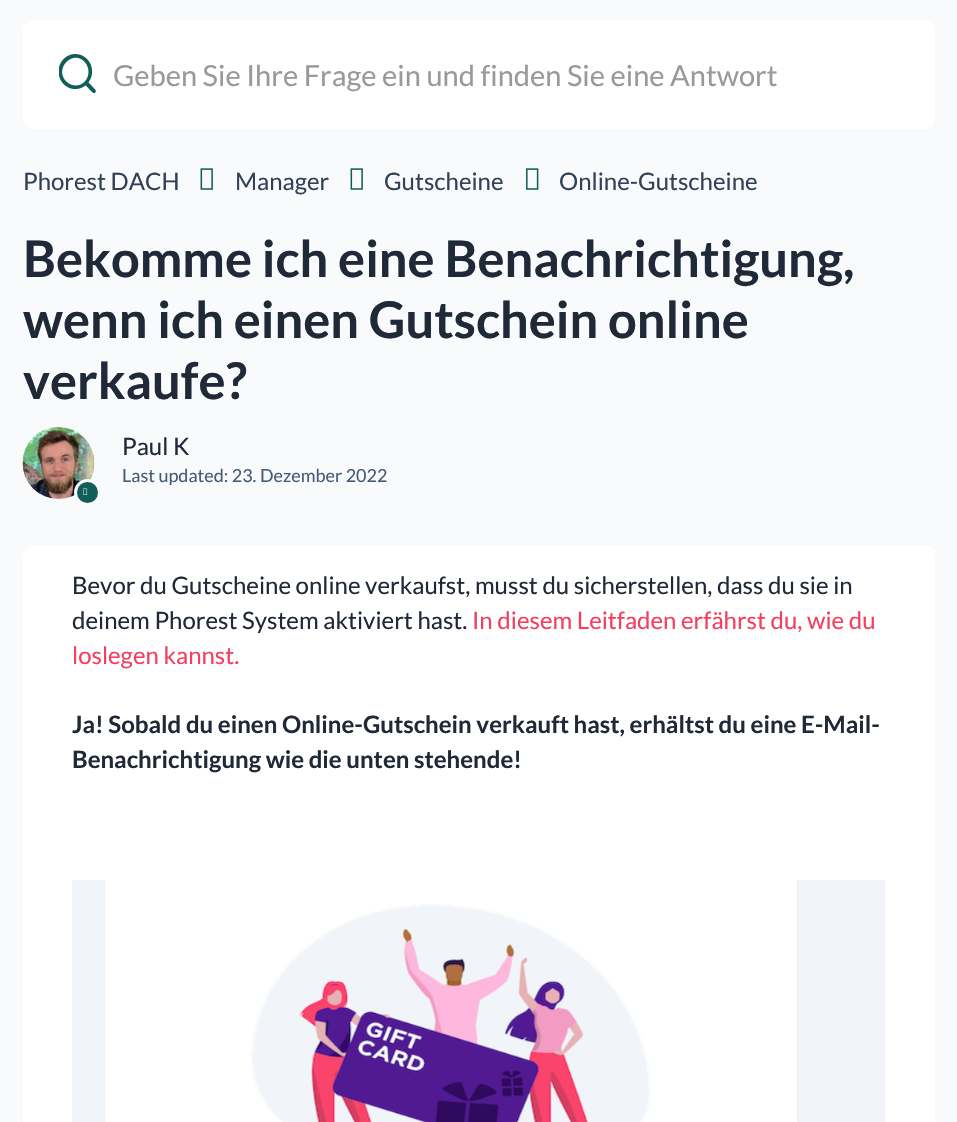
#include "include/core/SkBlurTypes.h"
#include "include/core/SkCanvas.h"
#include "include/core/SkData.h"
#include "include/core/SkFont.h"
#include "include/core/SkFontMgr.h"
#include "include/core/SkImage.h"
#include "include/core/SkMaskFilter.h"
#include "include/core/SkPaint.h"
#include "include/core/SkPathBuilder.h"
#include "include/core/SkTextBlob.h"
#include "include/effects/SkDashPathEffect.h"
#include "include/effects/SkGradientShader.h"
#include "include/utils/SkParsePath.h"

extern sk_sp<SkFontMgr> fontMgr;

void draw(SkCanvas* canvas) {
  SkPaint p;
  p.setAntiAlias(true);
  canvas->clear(SkColorSetRGB(249, 250, 251));
  p.setColor(SK_ColorWHITE);
  canvas->drawRoundRect(SkRect::MakeLTRB(23, 20, 935, 129), 9, 9, p);
  canvas->drawImageRect(SkImages::DeferredFromEncodedData(SkData::MakeFromFileName("images/1.png")), SkRect::MakeLTRB(59, 54, 96, 93), SkSamplingOptions());
  canvas->drawImageRect(SkImages::DeferredFromEncodedData(SkData::MakeFromFileName("images/2.png")), SkRect::MakeLTRB(200, 168, 213, 190), SkSamplingOptions());
  canvas->drawImageRect(SkImages::DeferredFromEncodedData(SkData::MakeFromFileName("images/2.png")), SkRect::MakeLTRB(350, 168, 363, 190), SkSamplingOptions());
  canvas->drawImageRect(SkImages::DeferredFromEncodedData(SkData::MakeFromFileName("images/3.png")), SkRect::MakeLTRB(526, 168, 539, 190), SkSamplingOptions());
  canvas->drawImageRect(SkImages::DeferredFromEncodedData(SkData::MakeFromFileName("images/4.png")), SkRect::MakeLTRB(22, 427, 95, 499), SkSamplingOptions());
  p.setColor(SkColorSetRGB(17, 94, 89));
  canvas->drawCircle(87.5f, 492.5f, 12, p);
  p.setStyle(SkPaint::kStroke_Style);
  p.setStrokeWidth(3);
  p.setColor(SkColorSetRGB(249, 250, 251));
  canvas->drawCircle(87.5f, 492.5f, 12, p);
  canvas->drawImageRect(SkImages::DeferredFromEncodedData(SkData::MakeFromFileName("images/5.png")), SkRect::MakeLTRB(83, 488, 88, 495), SkSamplingOptions());
  p.setStyle(SkPaint::kFill_Style);
  p.setColor(SK_ColorWHITE);
  canvas->drawRoundRect(SkRect::MakeLTRB(23, 545, 935, 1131), 9, 9, p);
  canvas->drawImageRect(SkImages::DeferredFromEncodedData(SkData::MakeFromFileName("images/6.png")), SkRect::MakeLTRB(72, 880, 885, 1122), SkSamplingOptions());
  SkFont font1(fontMgr->matchFamilyStyle("Lato", SkFontStyle::Normal()), 29);
  font1.setSubpixel(true);
  p.setColor(SkColorSetRGB(153, 153, 153));
  canvas->drawString("Geben Sie Ihre Frage ein und finden Sie eine Antwort", 113, 86, font1, p);
  SkFont font2(fontMgr->matchFamilyStyle("Lato", SkFontStyle::Normal()), 24);
  font2.setSubpixel(true);
  p.setColor(SkColorSetRGB(49, 65, 88));
  canvas->drawString("Phorest DACH", 23, 190, font2, p);
  canvas->drawString("Manager", 235, 190, font2, p);
  canvas->drawString("Gutscheine", 384, 190, font2, p);
  canvas->drawString("Online-Gutscheine", 559, 190, font2, p);
  SkFont font3(fontMgr->matchFamilyStyle("Lato", SkFontStyle::Bold()), 50.6f);
  font3.setSubpixel(true);
  p.setColor(SkColorSetRGB(31, 41, 55));
  canvas->drawString("Bekomme ich eine Benachrichtigung,", 23, 277, font3, p);
  canvas->drawString("wenn ich einen Gutschein online", 23, 338, font3, p);
  canvas->drawString("verkaufe?", 23, 399, font3, p);
  canvas->drawString("Paul K", 122, 455, font2, p);
  SkFont font4(fontMgr->matchFamilyStyle("Lato", SkFontStyle::Normal()), 18);
  font4.setSubpixel(true);
  p.setColor(SkColorSetRGB(68, 90, 120));
  canvas->drawString("Last updated: 23. Dezember 2022", 122, 482, font4, p);
  p.setColor(SkColorSetRGB(31, 41, 55));
  canvas->drawString("Bevor du Gutscheine online verkaufst, musst du sicherstellen, dass du sie in", 72, 594, font2, p);
  canvas->drawString("deinem Phorest System aktiviert hast.", 72, 629, font2, p);
  p.setColor(SkColorSetRGB(244, 63, 94));
  canvas->drawString("In diesem Leitfaden erfährst du, wie du", 472, 629, font2, p);
  canvas->drawString("loslegen kannst.", 72, 664, font2, p);
  SkFont font5(fontMgr->matchFamilyStyle("Lato", SkFontStyle::Bold()), 24);
  font5.setSubpixel(true);
  p.setColor(SkColorSetRGB(31, 41, 55));
  canvas->drawString("Ja! Sobald du einen Online-Gutschein verkauft hast, erhältst du eine E-Mail-", 72, 733, font5, p);
  canvas->drawString("Benachrichtigung wie die unten stehende!", 72, 768, font5, p);
}
